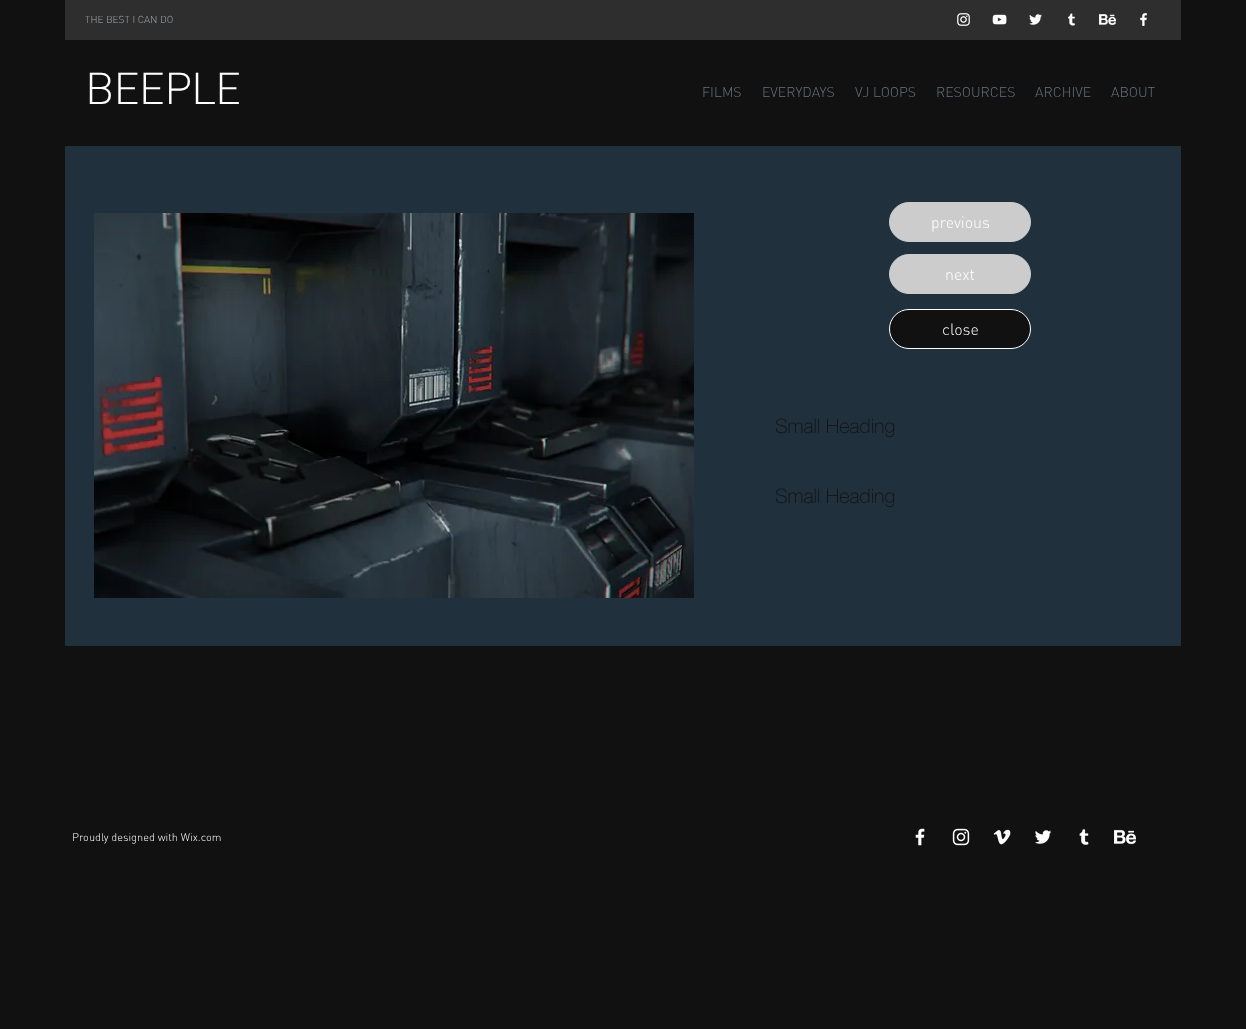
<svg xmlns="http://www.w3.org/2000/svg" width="1246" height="1029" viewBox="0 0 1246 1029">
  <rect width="100%" height="100%" fill="#111111"/>
  <rect x="65" y="0" width="1116" height="40" fill="#2f2e2e"/>
  <text x="85" y="23" font-family="DIN" font-size="10" font-weight="300" fill="#a3abb0">THE BEST I CAN DO</text>
  <image x="957" y="13" width="13" height="13" href="img1.png"/>
  <image x="992" y="14" width="15" height="11" href="img2.png"/>
  <image x="1029" y="14" width="13" height="11" href="img3.png"/>
  <image x="1068" y="13" width="7" height="13" href="img4.png"/>
  <image x="1099" y="14" width="17" height="11" href="img5.png"/>
  <image x="1140" y="13" width="7" height="13" href="img6.png"/>
  <text x="85" y="104" font-family="DIN" font-size="44" font-weight="300" letter-spacing="-1" fill="#ffffff">BEEPLE</text>
  <text x="702" y="97" font-family="DIN" font-size="14" font-weight="300" fill="#66737c">FILMS</text>
  <text x="762" y="97" font-family="DIN" font-size="14" font-weight="300" fill="#66737c">EVERYDAYS</text>
  <text x="855" y="97" font-family="DIN" font-size="14" font-weight="300" fill="#66737c">VJ LOOPS</text>
  <text x="936" y="97" font-family="DIN" font-size="14" font-weight="300" fill="#66737c">RESOURCES</text>
  <text x="1035" y="97" font-family="DIN" font-size="14" font-weight="300" fill="#66737c">ARCHIVE</text>
  <text x="1111" y="97" font-family="DIN" font-size="14" font-weight="300" fill="#66737c">ABOUT</text>
  <rect x="65" y="146" width="1116" height="500" fill="#20303c"/>
  <image x="94" y="213" width="600" height="385" href="img7.png"/>
  <rect x="889.5" y="202.5" width="141" height="39" rx="19.5" fill="#cccccc" stroke="#cccccc"/>
  <text x="931" y="228" font-family="DIN" font-size="16" font-weight="300" fill="#ffffff">previous</text>
  <rect x="889.5" y="254.5" width="141" height="39" rx="19.5" fill="#cccccc" stroke="#cccccc"/>
  <text x="945" y="280" font-family="DIN" font-size="16" font-weight="300" fill="#ffffff">next</text>
  <rect x="889.5" y="309.5" width="141" height="39" rx="19.5" fill="#111111" stroke="#ffffff"/>
  <text x="942" y="335" font-family="DIN" font-size="16" font-weight="300" fill="#ffffff">close</text>
  <text x="775" y="433" font-family="'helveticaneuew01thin'" font-size="20" font-weight="100" fill="#111111">Small Heading</text>
  <text x="775" y="503" font-family="'helveticaneuew01thin'" font-size="20" font-weight="100" fill="#111111">Small Heading</text>
  <text x="72" y="841" font-family="DIN" font-size="11" font-weight="300" fill="#ffffff">Proudly designed with Wix.com</text>
  <image x="915" y="828" width="10" height="18" href="img8.png"/>
  <image x="952" y="828" width="18" height="18" href="img9.png"/>
  <image x="993" y="829" width="18" height="16" href="img10.png"/>
  <image x="1035" y="830" width="17" height="14" href="img11.png"/>
  <image x="1079" y="829" width="10" height="16" href="img12.png"/>
  <image x="1114" y="829" width="22" height="16" href="img13.png"/>
</svg>
